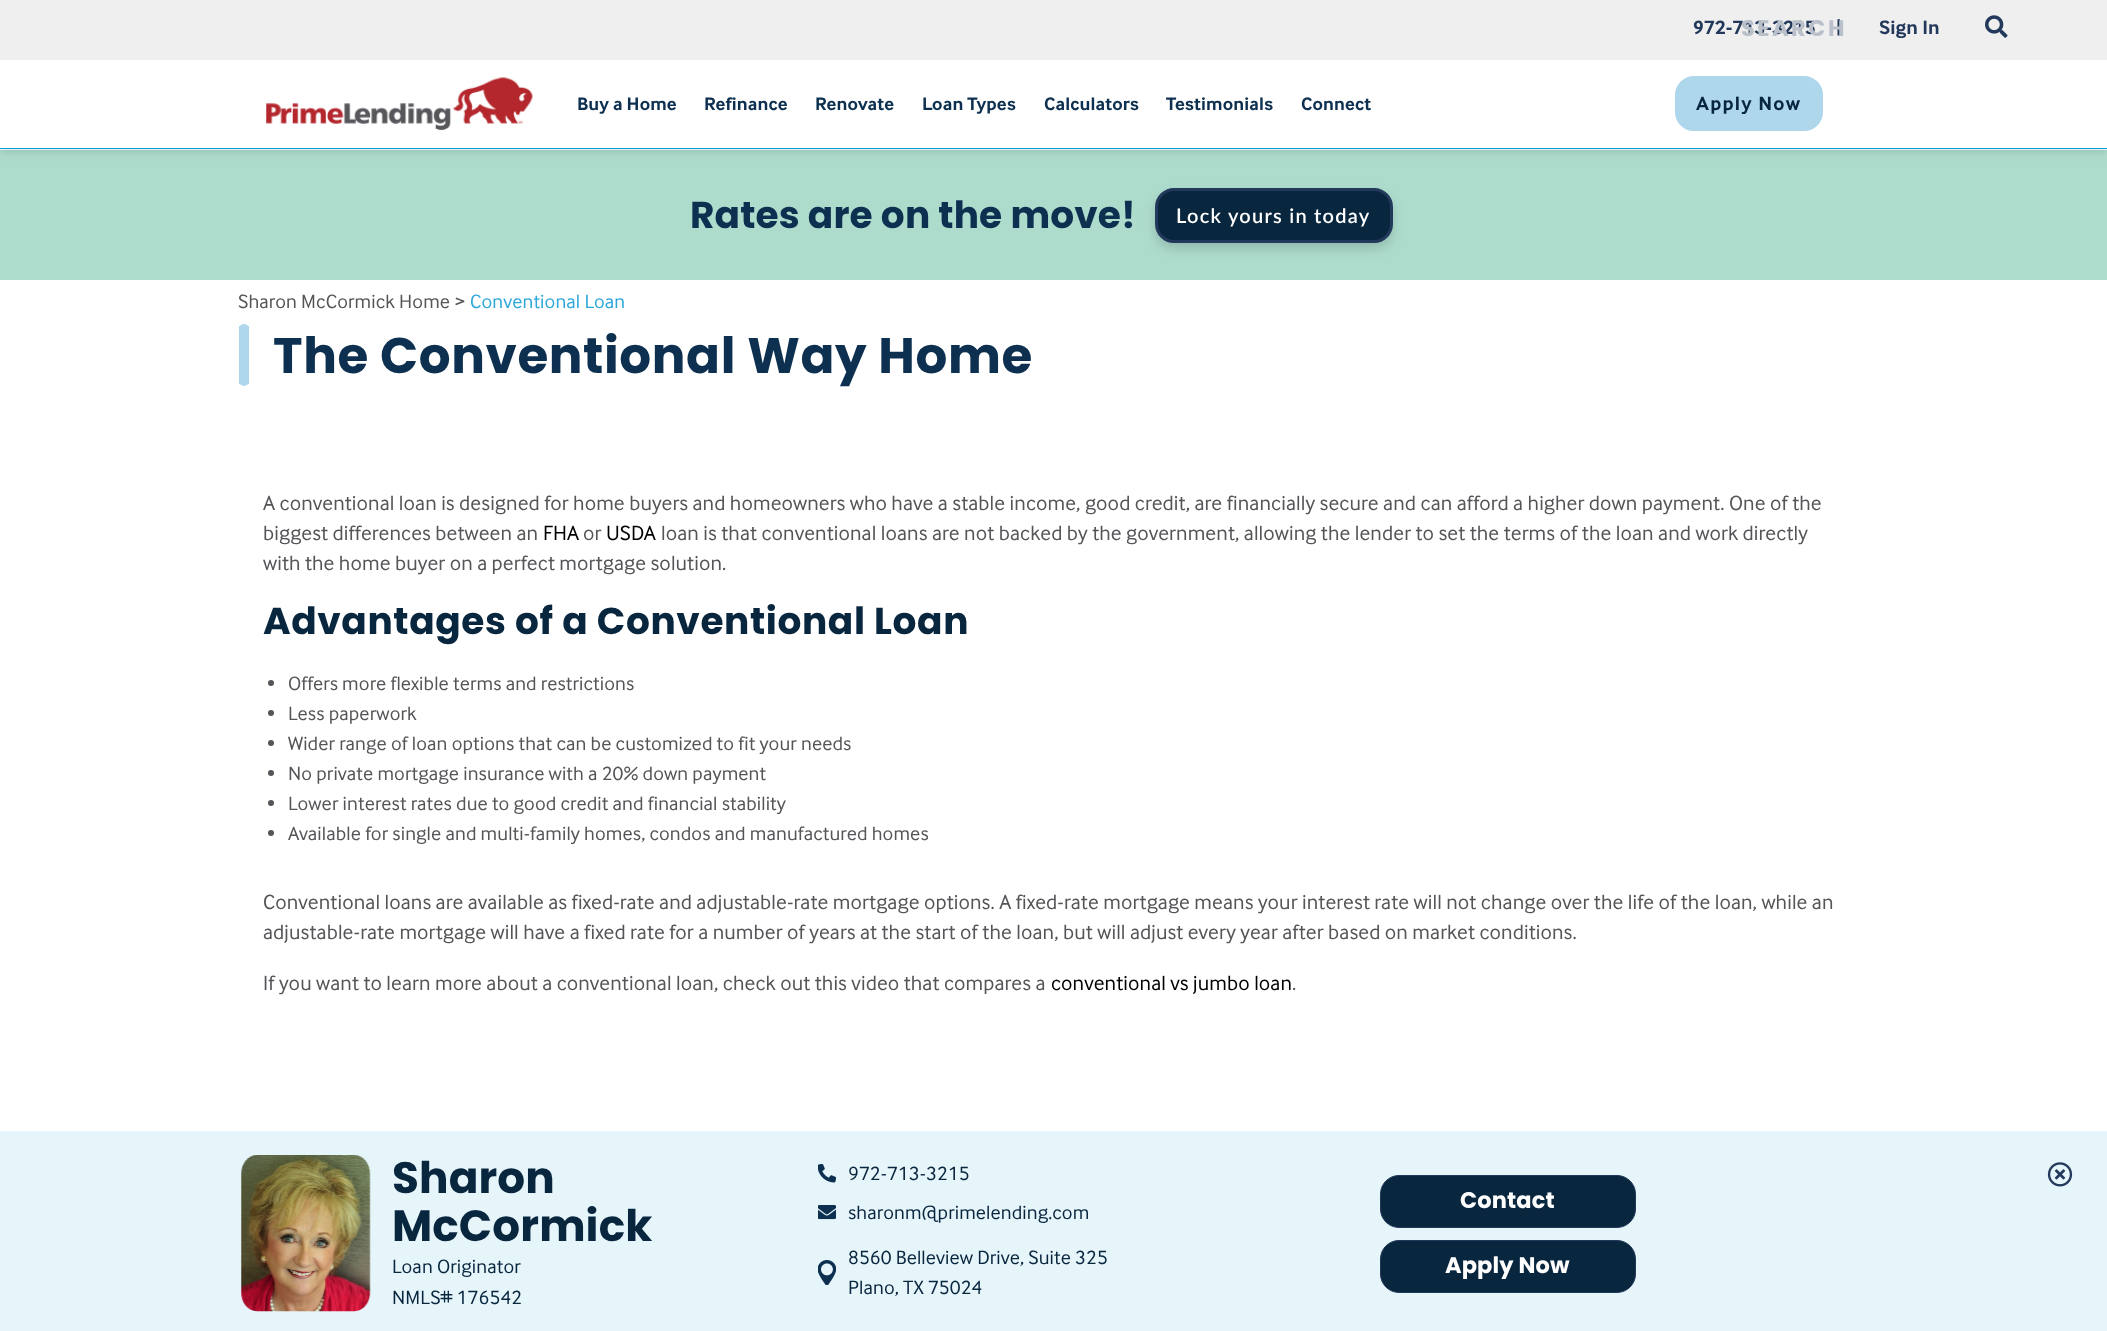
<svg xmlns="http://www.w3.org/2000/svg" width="2107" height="1331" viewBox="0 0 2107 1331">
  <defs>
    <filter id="blur1" x="-50%" y="-200%" width="200%" height="500%"><feGaussianBlur stdDeviation="4"/></filter>
    <filter id="blur2" x="-50%" y="-200%" width="200%" height="500%"><feGaussianBlur stdDeviation="6"/></filter>
  </defs>
  <rect width="100%" height="100%" fill="#ffffff"/>
  <rect x="0" y="150" width="2107" height="130" fill="#addccd"/>
  <rect x="0" y="4" width="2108" height="149" fill="#000000" fill-opacity="0.1" filter="url(#blur1)"/>
  <rect x="0" y="0" width="2107" height="60" fill="#efefef"/>
  <text x="1693" y="34" font-family="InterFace" font-size="20" font-weight="bold" letter-spacing="0.12" fill="#23395b">972-713-3215</text>
  <text x="1836" y="34" font-family="InterFace" font-size="20" font-weight="bold" letter-spacing="0.12" fill="#23395b">|</text>
  <text x="1741" y="36" font-family="Poppins" font-size="22.5" font-weight="bold" letter-spacing="2.5" fill="#bac0c9">SEARCH</text>
  <image x="1985" y="15" width="23" height="23" href="img1.png"/>
  <text x="1879" y="34" font-family="InterFace" font-size="20" font-weight="bold" letter-spacing="0.12" fill="#23395b">Sign In</text>
  <rect x="0" y="60" width="2107" height="88" fill="#ffffff"/>
  <rect x="0" y="148" width="2107" height="1" fill="#009ed8"/>
  <image x="266" y="77" width="267" height="54" href="img2.png"/>
  <text x="577" y="110" font-family="InterFace" font-size="18.75" font-weight="bold" letter-spacing="0.12" fill="#0d3050">Buy a Home</text>
  <text x="704" y="110" font-family="InterFace" font-size="18.75" font-weight="bold" letter-spacing="0.12" fill="#0d3050">Refinance</text>
  <text x="815" y="110" font-family="InterFace" font-size="18.75" font-weight="bold" letter-spacing="0.12" fill="#0d3050">Renovate</text>
  <text x="922" y="110" font-family="InterFace" font-size="18.75" font-weight="bold" letter-spacing="0.12" fill="#0d3050">Loan Types</text>
  <text x="1044" y="110" font-family="InterFace" font-size="18.75" font-weight="bold" letter-spacing="0.12" fill="#0d3050">Calculators</text>
  <text x="1166" y="110" font-family="InterFace" font-size="18.75" font-weight="bold" letter-spacing="0.12" fill="#0d3050">Testimonials</text>
  <text x="1301" y="110" font-family="InterFace" font-size="18.75" font-weight="bold" letter-spacing="0.12" fill="#0d3050">Connect</text>
  <rect x="1676.5" y="77.5" width="145" height="52" rx="17.5" fill="#aed7ec" stroke="#aed7ec" stroke-width="3"/>
  <text x="1696" y="110" font-family="InterFace" font-size="20" font-weight="bold" letter-spacing="1.25" fill="#09263f">Apply Now</text>
  <text x="690" y="228" font-family="Poppins" font-size="37.5" font-weight="bold" letter-spacing="0.12" fill="#0d3050">Rates are on the move!</text>
  <rect x="1155" y="194" width="238" height="55" rx="19" fill="#000000" fill-opacity="0.15" filter="url(#blur2)"/>
  <rect x="1156.5" y="189.5" width="235" height="52" rx="17.5" fill="#09263f" stroke="#23395b" stroke-width="3"/>
  <text x="1176" y="223" font-family="Lato" font-size="20" font-weight="600" letter-spacing="1.25" fill="#ffffff">Lock yours in today</text>
  <text x="238" y="308" font-family="InterFace" font-size="20" letter-spacing="0.12" fill="#555559">Sharon McCormick Home &gt;</text>
  <text x="470" y="308" font-family="InterFace" font-size="20" letter-spacing="0.12" fill="#2ea8db">Conventional Loan</text>
  <rect x="239" y="324" width="10" height="62" rx="5" fill="#aed7ec"/>
  <rect x="248" y="326" width="1" height="58" fill="#aed7ec"/>
  <rect x="239" y="326" width="1" height="58" fill="#aed7ec"/>
  <text x="273" y="373" font-family="Poppins" font-size="50" font-weight="bold" letter-spacing="0.6" fill="#0d3050">The Conventional Way Home</text>
  <text x="263" y="510" font-family="InterFace" font-size="21.25" letter-spacing="0.12" fill="#555559">A conventional loan is designed for home buyers and homeowners who have a stable income, good credit, are financially secure and can afford a higher down payment. One of the</text>
  <text x="263" y="540" font-family="InterFace" font-size="21.25" letter-spacing="0.12" fill="#555559">biggest differences between an</text>
  <text x="543" y="540" font-family="InterFace" font-size="21.25" letter-spacing="0.12" fill="#000000">FHA</text>
  <text x="583" y="540" font-family="InterFace" font-size="21.25" letter-spacing="0.12" fill="#555559">or</text>
  <text x="606" y="540" font-family="InterFace" font-size="21.25" letter-spacing="0.12" fill="#000000">USDA</text>
  <text x="661" y="540" font-family="InterFace" font-size="21.25" letter-spacing="0.12" fill="#555559">loan is that conventional loans are not backed by the government, allowing the lender to set the terms of the loan and work directly</text>
  <text x="263" y="570" font-family="InterFace" font-size="21.25" letter-spacing="0.12" fill="#555559">with the home buyer on a perfect mortgage solution.</text>
  <text x="263" y="634" font-family="Poppins" font-size="37.5" font-weight="bold" letter-spacing="0.6" fill="#09263f">Advantages of a Conventional Loan</text>
  <circle cx="271" cy="683" r="3" fill="#555559"/>
  <text x="288" y="690" font-family="InterFace" font-size="20" letter-spacing="0.12" fill="#555559">Offers more flexible terms and restrictions</text>
  <circle cx="271" cy="713" r="3" fill="#555559"/>
  <text x="288" y="720" font-family="InterFace" font-size="20" letter-spacing="0.12" fill="#555559">Less paperwork</text>
  <circle cx="271" cy="743" r="3" fill="#555559"/>
  <text x="288" y="750" font-family="InterFace" font-size="20" letter-spacing="0.12" fill="#555559">Wider range of loan options that can be customized to fit your needs</text>
  <circle cx="271" cy="773" r="3" fill="#555559"/>
  <text x="288" y="780" font-family="InterFace" font-size="20" letter-spacing="0.12" fill="#555559">No private mortgage insurance with a 20% down payment</text>
  <circle cx="271" cy="803" r="3" fill="#555559"/>
  <text x="288" y="810" font-family="InterFace" font-size="20" letter-spacing="0.12" fill="#555559">Lower interest rates due to good credit and financial stability</text>
  <circle cx="271" cy="833" r="3" fill="#555559"/>
  <text x="288" y="840" font-family="InterFace" font-size="20" letter-spacing="0.12" fill="#555559">Available for single and multi-family homes, condos and manufactured homes</text>
  <text x="263" y="909" font-family="InterFace" font-size="21.25" letter-spacing="0.12" fill="#555559">Conventional loans are available as fixed-rate and adjustable-rate mortgage options. A fixed-rate mortgage means your interest rate will not change over the life of the loan, while an</text>
  <text x="263" y="939" font-family="InterFace" font-size="21.25" letter-spacing="0.12" fill="#555559">adjustable-rate mortgage will have a fixed rate for a number of years at the start of the loan, but will adjust every year after based on market conditions.</text>
  <text x="263" y="990" font-family="InterFace" font-size="21.25" letter-spacing="0.12" fill="#555559">If you want to learn more about a conventional loan, check out this video that compares a</text>
  <text x="1051" y="990" font-family="InterFace" font-size="21.25" letter-spacing="0.12" fill="#000000">conventional vs jumbo loan</text>
  <text x="1292" y="990" font-family="InterFace" font-size="21.25" letter-spacing="0.12" fill="#555559">.</text>
  <rect x="0" y="1131" width="2107" height="200" fill="#e6f5fa"/>
  <image x="241" y="1155" width="130" height="157" href="img3.png"/>
  <text x="392" y="1193" font-family="Poppins" font-size="43.75" font-weight="bold" letter-spacing="0.12" fill="#09263f">Sharon</text>
  <text x="392" y="1241" font-family="Poppins" font-size="43.75" font-weight="bold" letter-spacing="0.12" fill="#09263f">McCormick</text>
  <text x="392" y="1273" font-family="InterFace" font-size="20" letter-spacing="0.12" fill="#09263f">Loan Originator</text>
  <text x="392" y="1304" font-family="InterFace" font-size="20" letter-spacing="0.12" fill="#09263f">NMLS# 176542</text>
  <image x="818" y="1164" width="18" height="19" href="img4.png"/>
  <text x="848" y="1180" font-family="InterFace" font-size="20" letter-spacing="0.12" fill="#09263f">972-713-3215</text>
  <image x="818" y="1205" width="18" height="15" href="img5.png"/>
  <text x="848" y="1219" font-family="InterFace" font-size="20" letter-spacing="0.12" fill="#09263f">sharonm@primelending.com</text>
  <image x="818" y="1260" width="18" height="25" href="img6.png"/>
  <text x="848" y="1264" font-family="InterFace" font-size="20" letter-spacing="0.12" fill="#09263f">8560 Belleview Drive, Suite 325</text>
  <text x="848" y="1294" font-family="InterFace" font-size="20" letter-spacing="0.12" fill="#09263f">Plano, TX 75024</text>
  <rect x="1380.5" y="1175.5" width="255" height="52" rx="18.5" fill="#09263f" stroke="#23395b"/>
  <text x="1460" y="1208" font-family="Poppins" font-size="22.5" font-weight="bold" letter-spacing="0.12" fill="#ffffff">Contact</text>
  <rect x="1380.5" y="1240.5" width="255" height="52" rx="18.5" fill="#09263f" stroke="#23395b"/>
  <text x="1445" y="1273" font-family="Poppins" font-size="22.5" font-weight="bold" letter-spacing="0.12" fill="#ffffff">Apply Now</text>
  <image x="2047" y="1162" width="26" height="25" href="img7.png"/>
</svg>
